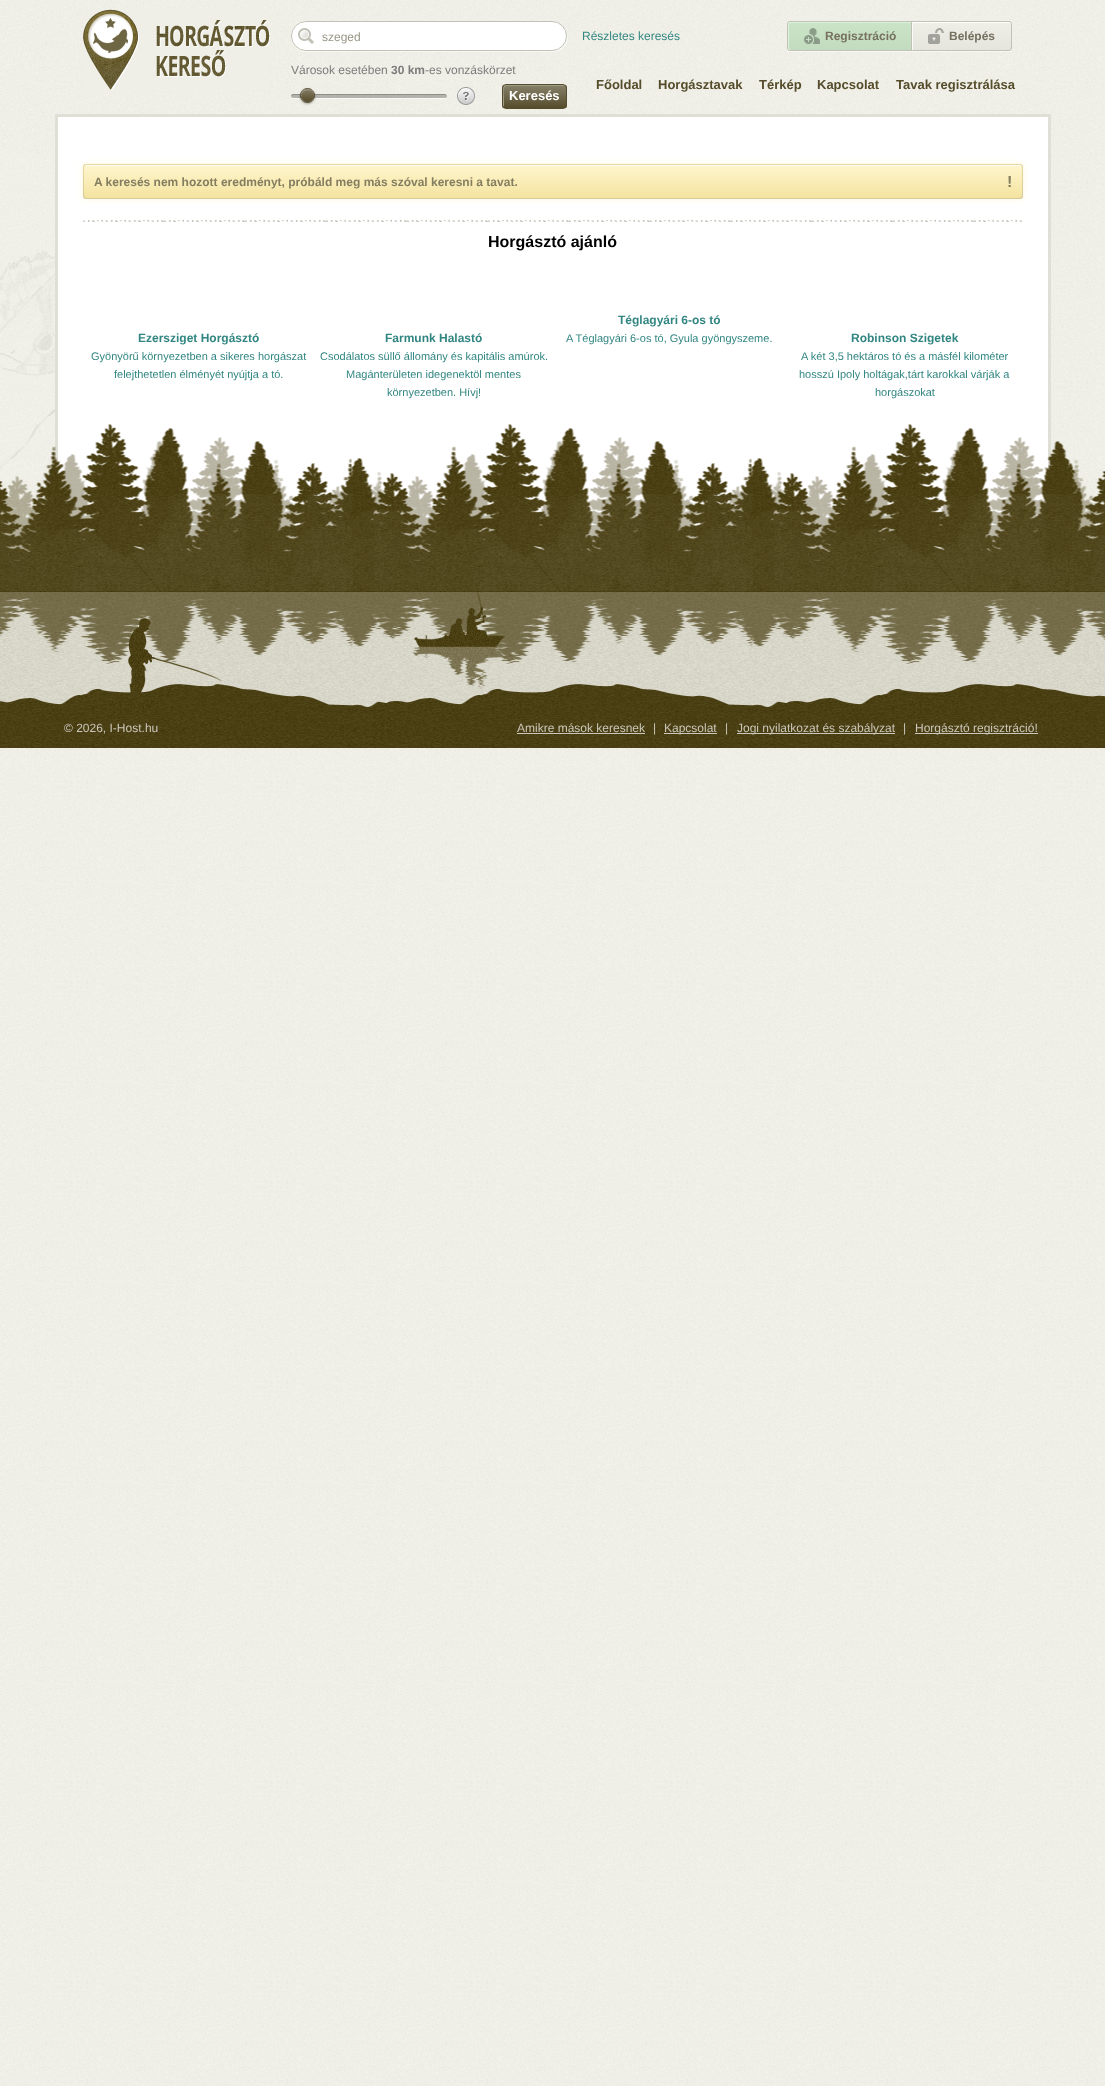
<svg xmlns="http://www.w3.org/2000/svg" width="1105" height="2086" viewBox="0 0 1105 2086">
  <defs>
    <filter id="blur1" x="-50%" y="-200%" width="200%" height="500%"><feGaussianBlur stdDeviation="1"/></filter>
    <linearGradient id="g1" gradientUnits="userSpaceOnUse" x1="308" y1="102" x2="308" y2="89"><stop offset="0" stop-color="#554b2b"/><stop offset="1" stop-color="#857d65"/></linearGradient>
    <clipPath id="clip1"><rect x="502" y="84" width="65" height="25" rx="4"/></clipPath>
    <linearGradient id="g2" gradientUnits="userSpaceOnUse" x1="535" y1="85" x2="535" y2="108"><stop offset="0" stop-color="#878169"/><stop offset="1" stop-color="#554c2b"/></linearGradient>
    <linearGradient id="g3" gradientUnits="userSpaceOnUse" x1="900" y1="50" x2="900" y2="22"><stop offset="0" stop-color="#e5e5de"/><stop offset="1" stop-color="#efefe7"/></linearGradient>
    <filter id="blur2" x="-50%" y="-200%" width="200%" height="500%"><feGaussianBlur stdDeviation="3"/></filter>
    <linearGradient id="g4" gradientUnits="userSpaceOnUse" x1="553" y1="164" x2="553" y2="199"><stop offset="0" stop-color="#e6d89f"/><stop offset="1" stop-color="#d4c999"/></linearGradient>
    <linearGradient id="g5" gradientUnits="userSpaceOnUse" x1="553" y1="165" x2="553" y2="198"><stop offset="0" stop-color="#fff5ce"/><stop offset="1" stop-color="#f4e49f"/></linearGradient>
  </defs>
  <rect width="100%" height="100%" fill="#efefe7"/>
  <image x="0" y="0" width="1104" height="2086" href="img1.png"/>
  <image x="0" y="153" width="55" height="345" href="img2.png"/>
  <image x="83" y="9" width="187" height="82" href="img3.png"/>
  <path d="M296 47C298 50 302 52 305 52H553C567 52 573 35 563 26C566 29 567 32 567 36C567 44 560 51 552 51H306C302 51 299 50 296 47Z" fill="#ffffff" fill-opacity="0.5"/>
  <rect x="291" y="21" width="276" height="30" rx="15" fill="#ffffff"/>
  <image x="298" y="28" width="16" height="16" href="img4.png"/>
  <rect x="291.5" y="21.5" width="275" height="29" rx="14.5" fill="none" stroke="#c1c1b6"/>
  <text x="322" y="41" font-family="Liberation Sans" font-size="12" fill="#999585">szeged</text>
  <text x="291" y="74" font-family="Liberation Sans" font-size="12" fill="#7c7c7c">Városok esetében</text>
  <text x="391" y="74" font-family="Liberation Sans" font-size="12" font-weight="bold" fill="#7c7c7c">30 km</text>
  <text x="425" y="74" font-family="Liberation Sans" font-size="12" fill="#7c7c7c">-es vonzáskörzet</text>
  <path d="M291 96V98L293 99H445C446 99 447 98 447 96C447 97 446 98 445 98H292Z" fill="#ffffff" fill-opacity="0.6"/>
  <rect x="291" y="94" width="156" height="4" rx="2" fill="#000000" fill-opacity="0.25"/>
  <path d="M293 95H445C446 95 447 96 447 97L446 95L445 94H293C292 94 291 95 291 96Z" fill="#000000" fill-opacity="0.2"/>
  <rect x="300" y="89" width="15" height="15" rx="7.5" fill="#000000" fill-opacity="0.3" filter="url(#blur1)"/>
  <circle cx="307.5" cy="95.5" r="6.5" fill="url(#g1)"/>
  <path d="M308 90C312 90 314 93 314 96C314.5 85.5 298 88 301.5 97.5C301 94 303 90 308 90Z" fill="#ffffff" fill-opacity="0.3"/>
  <circle cx="307.5" cy="95.5" r="7" fill="none" stroke="#554b2b"/>
  <image x="457" y="87" width="18" height="18" href="img5.png"/>
  <g clip-path="url(#clip1)">
    <rect x="502" y="85" width="65" height="23" fill="url(#g2)"/>
  </g>
  <path d="M507 86H565C565 85 564 85 563 85H506C504 85 503 86 503 88V105C503 106 503 107 504 107V98C504 94 502 86 507 86Z" fill="#a09b89"/>
  <rect x="502.5" y="84.5" width="64" height="24" rx="3.5" fill="none" stroke="#554c2b"/>
  <text x="509" y="100" font-family="Liberation Sans" font-size="13" font-weight="bold" fill="#ffffff">Keresés</text>
  <text x="582" y="40" font-family="Liberation Sans" font-size="12" fill="#328682">Részletes keresés</text>
  <path d="M787 48V49C787 51 788 52 790 52H1009C1011 52 1012 51 1012 49V48C1012 50 1011 51 1009 51H790C788 51 787 50 787 48Z" fill="#ffffff" fill-opacity="0.5"/>
  <rect x="788" y="22" width="223" height="28" rx="2" fill="url(#g3)"/>
  <path d="M790 23H1009C1010 23 1011 24 1011 25C1011 24 1011 22 1009 22H790L789 23L788 25C788 24 789 23 790 23Z" fill="#ffffff"/>
  <rect x="787.5" y="21.5" width="224" height="29" rx="2.5" fill="none" stroke="#c1c1b5"/>
  <path d="M791 22H912V50H791C789.5 50 788 48.5 788 47V25C788 23.5 789.5 22 791 22Z" fill="#00a614" fill-opacity="0.15"/>
  <rect x="911" y="22" width="1" height="28" fill="#c1c1b5"/>
  <path d="M791 22C789 22 788 23 788 25V47C788 49 789 50 791 50C790 50 789 49 789 47V25C789 23 790 22 791 22Z" fill="#d9f2dc"/>
  <image x="804" y="28" width="16" height="16" href="img6.png"/>
  <text x="825" y="40" font-family="Liberation Sans" font-size="12" font-weight="bold" fill="#757060">Regisztráció</text>
  <rect x="912" y="22" width="1" height="28" fill="#fbfbf9"/>
  <image x="928" y="28" width="16" height="16" href="img7.png"/>
  <text x="949" y="40" font-family="Liberation Sans" font-size="12" font-weight="bold" fill="#757060">Belépés</text>
  <text x="596" y="89" font-family="Liberation Sans" font-size="13" font-weight="bold" fill="#554c2b">Főoldal</text>
  <text x="658" y="89" font-family="Liberation Sans" font-size="13" font-weight="bold" fill="#554c2b">Horgásztavak</text>
  <text x="759" y="89" font-family="Liberation Sans" font-size="13" font-weight="bold" fill="#554c2b">Térkép</text>
  <text x="817" y="89" font-family="Liberation Sans" font-size="13" font-weight="bold" fill="#554c2b">Kapcsolat</text>
  <text x="896" y="89" font-family="Liberation Sans" font-size="13" font-weight="bold" fill="#554c2b">Tavak regisztrálása</text>
  <rect x="58" y="117" width="990" height="445" fill="#ffffff"/>
  <rect x="56.5" y="115.5" width="993" height="477" fill="none" stroke="#dfdfd5" stroke-width="3"/>
  <rect x="83" y="164" width="940" height="35" rx="3" fill="#fef4cb" fill-opacity="0.7" filter="url(#blur2)"/>
  <rect x="83" y="164" width="940" height="35" rx="3" fill="url(#g4)"/>
  <rect x="84" y="165" width="938" height="33" rx="3" fill="url(#g5)"/>
  <path d="M87 166H1019C1021 166 1022 167 1022 169C1022 167 1021 165 1019 165H87C85 165 84 167 84 169C84 167 85 166 87 166Z" fill="#fffdf3"/>
  <text x="94" y="186" font-family="Liberation Sans" font-size="12" font-weight="bold" fill="#847e61">A keresés nem hozott eredményt, próbáld meg más szóval keresni a tavat.</text>
  <text x="1007" y="187" font-family="Liberation Sans" font-size="16" font-weight="bold" fill="#847e61">!</text>
  <image x="83" y="219" width="939" height="3" href="img8.png"/>
  <text x="488" y="247" font-family="Liberation Sans" font-size="16" font-weight="bold" fill="#000000">Horgásztó ajánló</text>
  <text x="618" y="324" font-family="Liberation Sans" font-size="12" font-weight="bold" fill="#328682">Téglagyári 6-os tó</text>
  <text x="566" y="342" font-family="Liberation Sans" font-size="11" fill="#328682">A Téglagyári 6-os tó, Gyula gyöngyszeme.</text>
  <text x="138" y="342" font-family="Liberation Sans" font-size="12" font-weight="bold" fill="#328682">Ezersziget Horgásztó</text>
  <text x="91" y="360" font-family="Liberation Sans" font-size="11" fill="#328682">Gyönyörű környezetben a sikeres horgászat</text>
  <text x="114" y="378" font-family="Liberation Sans" font-size="11" fill="#328682">felejthetetlen élményét nyújtja a tó.</text>
  <text x="385" y="342" font-family="Liberation Sans" font-size="12" font-weight="bold" fill="#328682">Farmunk Halastó</text>
  <text x="320" y="360" font-family="Liberation Sans" font-size="11" fill="#328682">Csodálatos süllő állomány és kapitális amúrok.</text>
  <text x="346" y="378" font-family="Liberation Sans" font-size="11" fill="#328682">Magánterületen idegenektöl mentes</text>
  <text x="387" y="396" font-family="Liberation Sans" font-size="11" fill="#328682">környezetben. Hívj!</text>
  <text x="851" y="342" font-family="Liberation Sans" font-size="12" font-weight="bold" fill="#328682">Robinson Szigetek</text>
  <text x="801" y="360" font-family="Liberation Sans" font-size="11" fill="#328682">A két 3,5 hektáros tó és a másfél kilométer</text>
  <text x="799" y="378" font-family="Liberation Sans" font-size="11" fill="#328682">hosszú Ipoly holtágak,tárt karokkal várják a</text>
  <text x="875" y="396" font-family="Liberation Sans" font-size="11" fill="#328682">horgászokat</text>
  <image x="0" y="424" width="1105" height="324" href="img9.png"/>
  <image x="128" y="618" width="24" height="90" href="img10.png"/>
  <image x="151" y="657" width="71" height="25" href="img11.png"/>
  <image x="413" y="583" width="92" height="106" href="img12.png"/>
  <text x="64" y="732" font-family="Liberation Sans" font-size="12" fill="#cbc7ba">© 2026, I-Host.hu</text>
  <text x="517" y="732" font-family="Liberation Sans" font-size="12" fill="#cbc7ba">Amikre mások keresnek</text>
  <rect x="517" y="733" width="128" height="1" fill="#cbc7ba"/>
  <text x="653" y="732" font-family="Liberation Sans" font-size="12" fill="#cbc7ba">|</text>
  <rect x="664" y="733" width="53" height="1" fill="#cbc7ba"/>
  <text x="664" y="732" font-family="Liberation Sans" font-size="12" fill="#cbc7ba">Kapcsolat</text>
  <text x="725" y="732" font-family="Liberation Sans" font-size="12" fill="#cbc7ba">|</text>
  <rect x="737" y="733" width="158" height="1" fill="#cbc7ba"/>
  <text x="737" y="732" font-family="Liberation Sans" font-size="12" fill="#cbc7ba">Jogi nyilatkozat és szabályzat</text>
  <text x="903" y="732" font-family="Liberation Sans" font-size="12" fill="#cbc7ba">|</text>
  <rect x="915" y="733" width="123" height="1" fill="#cbc7ba"/>
  <text x="915" y="732" font-family="Liberation Sans" font-size="12" fill="#cbc7ba">Horgásztó regisztráció!</text>
</svg>
